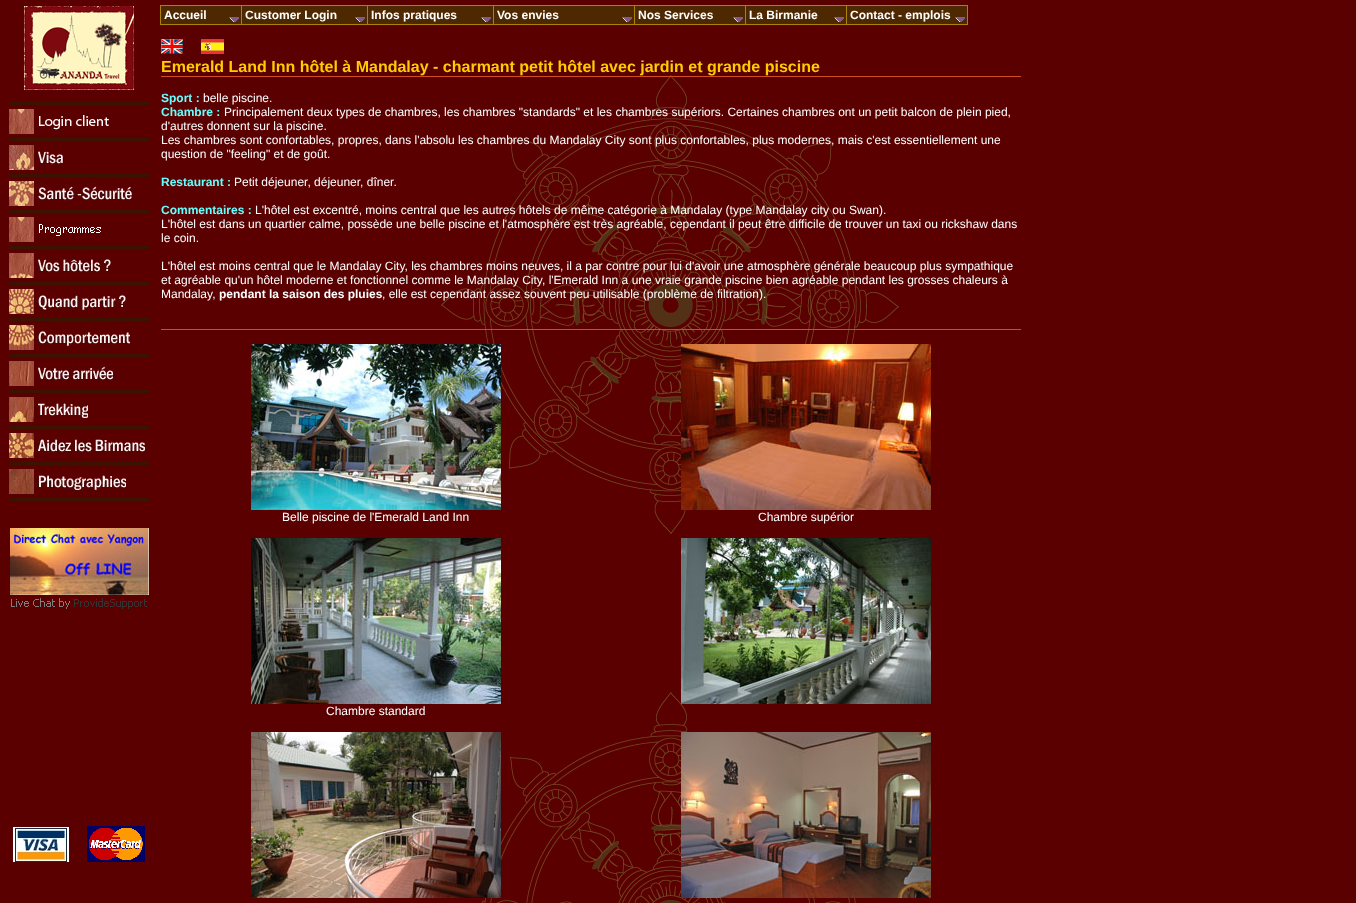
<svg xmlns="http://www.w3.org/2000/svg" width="1356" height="903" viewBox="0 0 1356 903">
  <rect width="100%" height="100%" fill="#ffffff"/>
  <image x="0" y="0" width="1356" height="903" href="img1.png"/>
  <rect x="160" y="5" width="808" height="20" fill="#ab8107"/>
  <rect x="161" y="6" width="80" height="18" fill="#4e2800"/>
  <text x="164" y="19" font-family="Liberation Sans" font-size="12" font-weight="bold" fill="#ffffff">Accueil</text>
  <image x="229" y="17" width="10" height="5" href="img2.png"/>
  <rect x="242" y="6" width="125" height="18" fill="#4e2800"/>
  <text x="245" y="19" font-family="Liberation Sans" font-size="12" font-weight="bold" fill="#ffffff">Customer Login</text>
  <image x="355" y="17" width="10" height="5" href="img2.png"/>
  <rect x="368" y="6" width="125" height="18" fill="#4e2800"/>
  <text x="371" y="19" font-family="Liberation Sans" font-size="12" font-weight="bold" fill="#ffffff">Infos pratiques</text>
  <image x="481" y="17" width="10" height="5" href="img2.png"/>
  <rect x="494" y="6" width="140" height="18" fill="#4e2800"/>
  <text x="497" y="19" font-family="Liberation Sans" font-size="12" font-weight="bold" fill="#ffffff">Vos envies</text>
  <image x="622" y="17" width="10" height="5" href="img2.png"/>
  <rect x="635" y="6" width="110" height="18" fill="#4e2800"/>
  <text x="638" y="19" font-family="Liberation Sans" font-size="12" font-weight="bold" fill="#ffffff">Nos Services</text>
  <image x="733" y="17" width="10" height="5" href="img2.png"/>
  <rect x="746" y="6" width="100" height="18" fill="#4e2800"/>
  <text x="749" y="19" font-family="Liberation Sans" font-size="12" font-weight="bold" fill="#ffffff">La Birmanie</text>
  <image x="834" y="17" width="10" height="5" href="img2.png"/>
  <rect x="847" y="6" width="120" height="18" fill="#4e2800"/>
  <text x="850" y="19" font-family="Liberation Sans" font-size="12" font-weight="bold" fill="#ffffff">Contact - emplois</text>
  <image x="955" y="17" width="10" height="5" href="img2.png"/>
  <image x="24" y="6" width="110" height="84" href="img3.png"/>
  <rect x="9" y="102" width="140" height="3" fill="#3c1300"/>
  <image x="9" y="109" width="25" height="25" href="img4.png"/>
  <image x="39" y="115" width="70" height="15" href="img5.png"/>
  <rect x="9" y="138" width="140" height="3" fill="#3c1300"/>
  <image x="9" y="145" width="25" height="25" href="img6.png"/>
  <image x="38" y="147" width="100" height="21" href="img7.png"/>
  <rect x="9" y="174" width="140" height="3" fill="#3c1300"/>
  <image x="9" y="181" width="25" height="25" href="img8.png"/>
  <image x="38" y="183" width="94" height="20" href="img9.png"/>
  <rect x="9" y="210" width="140" height="3" fill="#3c1300"/>
  <image x="9" y="217" width="25" height="25" href="img4.png"/>
  <image x="39" y="219" width="71" height="17" href="img10.png"/>
  <rect x="9" y="246" width="140" height="3" fill="#3c1300"/>
  <image x="9" y="253" width="25" height="25" href="img11.png"/>
  <image x="38" y="255" width="73" height="21" href="img12.png"/>
  <rect x="9" y="282" width="140" height="3" fill="#3c1300"/>
  <image x="9" y="289" width="25" height="25" href="img13.png"/>
  <image x="38" y="291" width="88" height="21" href="img14.png"/>
  <rect x="9" y="318" width="140" height="3" fill="#3c1300"/>
  <image x="9" y="325" width="25" height="25" href="img15.png"/>
  <image x="38" y="327" width="92" height="20" href="img16.png"/>
  <rect x="9" y="354" width="140" height="3" fill="#3c1300"/>
  <image x="9" y="361" width="25" height="25" href="img17.png"/>
  <image x="38" y="363" width="75" height="18" href="img18.png"/>
  <rect x="9" y="390" width="140" height="3" fill="#3c1300"/>
  <image x="9" y="397" width="25" height="25" href="img19.png"/>
  <image x="38" y="399" width="50" height="21" href="img20.png"/>
  <rect x="9" y="426" width="140" height="3" fill="#3c1300"/>
  <image x="9" y="433" width="25" height="25" href="img21.png"/>
  <image x="38" y="435" width="107" height="18" href="img22.png"/>
  <rect x="9" y="462" width="140" height="3" fill="#3c1300"/>
  <image x="9" y="469" width="25" height="25" href="img23.png"/>
  <image x="38" y="471" width="88" height="21" href="img24.png"/>
  <rect x="9" y="498" width="140" height="3" fill="#3c1300"/>
  <image x="10" y="528" width="139" height="67" href="img25.png"/>
  <image x="11" y="598" width="136" height="11" href="img26.png"/>
  <image x="13" y="827" width="56" height="35" href="img27.png"/>
  <image x="87" y="826" width="58" height="36" href="img28.png"/>
  <image x="161" y="39" width="22" height="15" href="img29.png"/>
  <image x="201" y="39" width="23" height="15" href="img30.png"/>
  <text x="161" y="72" font-family="Liberation Sans" font-size="16" font-weight="bold" fill="#ffcc00">Emerald Land Inn hôtel à Mandalay - charmant petit hôtel avec jardin et grande piscine</text>
  <rect x="161" y="76" width="860" height="1" fill="#cd5021"/>
  <text x="161" y="102" font-family="Liberation Sans" font-size="12" font-weight="bold" fill="#66ffff">Sport :</text>
  <text x="203" y="102" font-family="Liberation Sans" font-size="12" fill="#ffffff">belle piscine.</text>
  <text x="161" y="116" font-family="Liberation Sans" font-size="12" font-weight="bold" fill="#66ffff">Chambre :</text>
  <text x="224" y="116" font-family="Liberation Sans" font-size="12" fill="#ffffff">Principalement deux types de chambres, les chambres "standards" et les chambres supériors. Certaines chambres ont un petit balcon de plein pied,</text>
  <text x="161" y="130" font-family="Liberation Sans" font-size="12" fill="#ffffff">d'autres donnent sur la piscine.</text>
  <text x="161" y="144" font-family="Liberation Sans" font-size="12" fill="#ffffff">Les chambres sont confortables, propres, dans l'absolu les chambres du Mandalay City sont plus confortables, plus modernes, mais c'est essentiellement une</text>
  <text x="161" y="158" font-family="Liberation Sans" font-size="12" fill="#ffffff">question de "feeling" et de goût.</text>
  <text x="161" y="186" font-family="Liberation Sans" font-size="12" font-weight="bold" fill="#66ffff">Restaurant :</text>
  <text x="234" y="186" font-family="Liberation Sans" font-size="12" fill="#ffffff">Petit déjeuner, déjeuner, dîner.</text>
  <text x="161" y="214" font-family="Liberation Sans" font-size="12" font-weight="bold" fill="#66ffff">Commentaires :</text>
  <text x="255" y="214" font-family="Liberation Sans" font-size="12" fill="#ffffff">L'hôtel est excentré, moins central que les autres hôtels de même catégorie à Mandalay (type Mandalay city ou Swan).</text>
  <text x="161" y="228" font-family="Liberation Sans" font-size="12" fill="#ffffff">L'hôtel est dans un quartier calme, possède une belle piscine et l'atmosphère est très agréable, cependant il peut être difficile de trouver un taxi ou rickshaw dans</text>
  <text x="161" y="242" font-family="Liberation Sans" font-size="12" fill="#ffffff">le coin.</text>
  <text x="161" y="270" font-family="Liberation Sans" font-size="12" fill="#ffffff">L'hôtel est moins central que le Mandalay City, les chambres moins neuves, il a par contre pour lui d'avoir une atmosphère générale beaucoup plus sympathique</text>
  <text x="161" y="284" font-family="Liberation Sans" font-size="12" fill="#ffffff">et agréable qu'un hôtel moderne et fonctionnel comme le Mandalay City, l'Emerald Inn a une vraie grande piscine bien agréable pendant les grosses chaleurs à</text>
  <text x="161" y="298" font-family="Liberation Sans" font-size="12" fill="#ffffff">Mandalay,</text>
  <text x="219" y="298" font-family="Liberation Sans" font-size="12" font-weight="bold" fill="#ffffff">pendant la saison des pluies</text>
  <text x="382" y="298" font-family="Liberation Sans" font-size="12" fill="#ffffff">, elle est cependant assez souvent peu utilisable (problème de filtration).</text>
  <rect x="161" y="329" width="860" height="1" fill="#cd5021"/>
  <image x="251" y="344" width="250" height="166" href="img31.png"/>
  <text x="282" y="521" font-family="Liberation Sans" font-size="12" fill="#ffffff">Belle piscine de l'Emerald Land Inn</text>
  <image x="681" y="344" width="250" height="166" href="img32.png"/>
  <text x="758" y="521" font-family="Liberation Sans" font-size="12" fill="#ffffff">Chambre supérior</text>
  <image x="681" y="538" width="250" height="166" href="img33.png"/>
  <image x="251" y="538" width="250" height="166" href="img34.png"/>
  <text x="326" y="715" font-family="Liberation Sans" font-size="12" fill="#ffffff">Chambre standard</text>
  <image x="251" y="732" width="250" height="166" href="img35.png"/>
  <image x="681" y="732" width="250" height="166" href="img36.png"/>
</svg>
